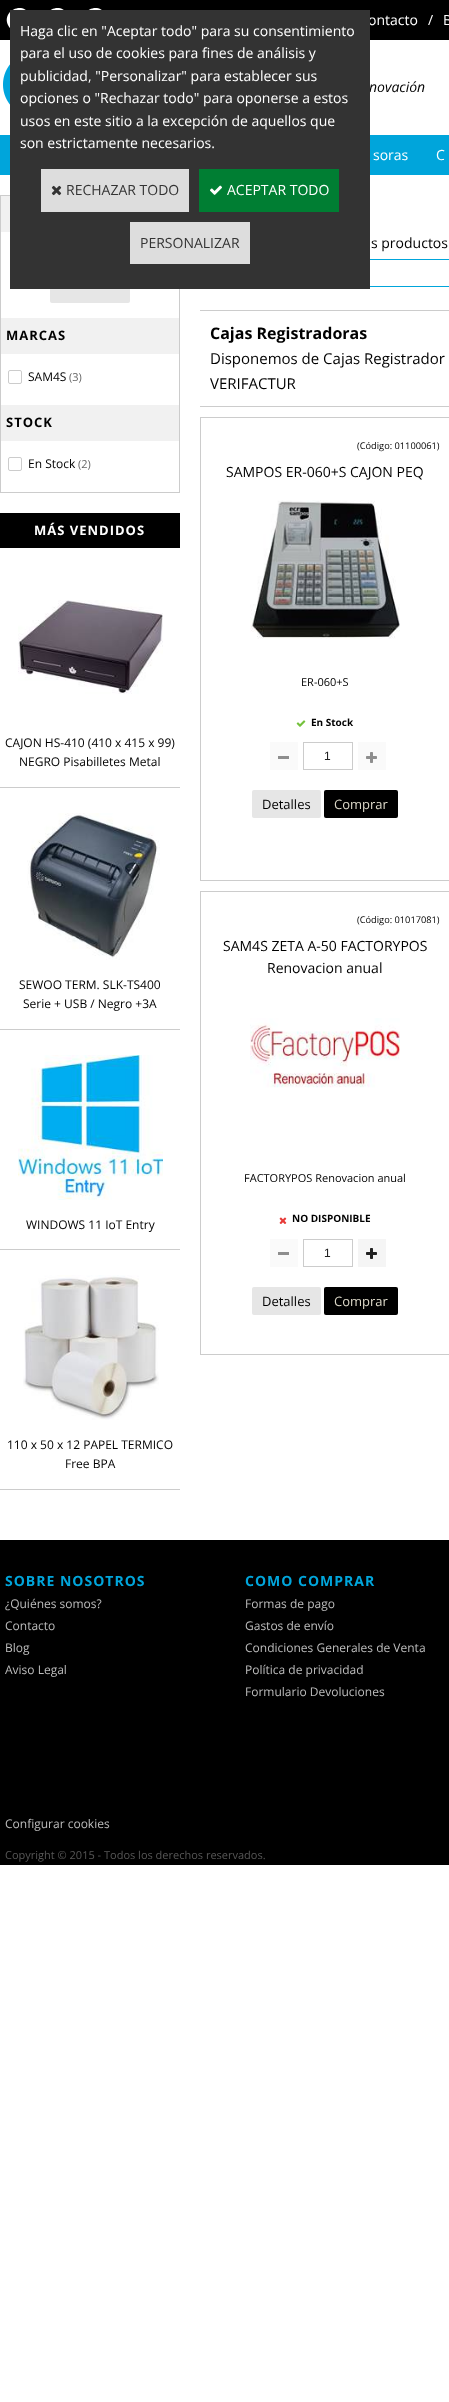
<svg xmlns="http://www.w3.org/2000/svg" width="449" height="2402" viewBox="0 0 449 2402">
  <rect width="100%" height="100%" fill="#ffffff"/>
  <rect x="0" y="135" width="449" height="40" fill="#00a5db"/>
  <rect x="0" y="0" width="449" height="40" fill="#000000"/>
  <path d="M29.5 14C37.5 27.5 16.5 39.5 8.5 26C.5 12.5 21.5 .5 29.5 14Z" fill="#ffffff"/>
  <path d="M67.5 14C75.5 27.5 54.5 39.5 46.5 26C38.5 12.5 59.5 .5 67.5 14Z" fill="#ffffff"/>
  <path d="M105.5 14C113.5 27.5 92.5 39.5 84.5 26C76.5 12.5 97.5 .5 105.5 14Z" fill="#ffffff"/>
  <text x="368" y="25" font-family="Open Sans" font-size="14" fill="#ffffff">ontacto</text>
  <text x="369" y="92" font-family="Open Sans" font-size="14" font-style="italic" fill="#000000">novación</text>
  <rect x="0.5" y="195.5" width="179" height="297" fill="none" stroke="#cccccc"/>
  <rect x="50" y="275" width="80" height="28" rx="2" fill="#e6e6e6"/>
  <rect x="200.5" y="259.5" width="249" height="27" fill="none" stroke="#00a5db"/>
  <rect x="10" y="10" width="360" height="279" fill="#333333"/>
  <text x="20" y="36" font-family="Open Sans" font-size="14" fill="#ffffff">Haga clic en "Aceptar todo" para su consentimiento</text>
  <text x="20" y="58" font-family="Open Sans" font-size="14" fill="#ffffff">para el uso de cookies para fines de análisis y</text>
  <text x="20" y="81" font-family="Open Sans" font-size="14" fill="#ffffff">publicidad, "Personalizar" para establecer sus</text>
  <text x="20" y="103" font-family="Open Sans" font-size="14" fill="#ffffff">opciones o "Rechazar todo" para oponerse a estos</text>
  <text x="20" y="126" font-family="Open Sans" font-size="14" fill="#ffffff">usos en este sitio a la excepción de aquellos que</text>
  <text x="20" y="148" font-family="Open Sans" font-size="14" fill="#ffffff">son estrictamente necesarios.</text>
  <rect x="41" y="169" width="148" height="43" fill="#dddddd"/>
  <image x="51" y="185" width="11" height="11" href="img1.png"/>
  <text x="66" y="195" font-family="Open Sans" font-size="14" fill="#333333">RECHAZAR TODO</text>
  <rect x="199" y="169" width="140" height="43" fill="#007e33"/>
  <image x="210" y="185" width="12" height="10" href="img2.png"/>
  <text x="227" y="195" font-family="Open Sans" font-size="14" fill="#ffffff">ACEPTAR TODO</text>
  <rect x="130" y="222" width="120" height="42" fill="#dddddd"/>
  <text x="140" y="248" font-family="Open Sans" font-size="14" fill="#333333">PERSONALIZAR</text>
  <text x="428" y="25" font-family="Open Sans" font-size="14" fill="#ffffff">/</text>
  <text x="443" y="25" font-family="Open Sans" font-size="14" fill="#ffffff">B</text>
  <image x="3" y="64" width="7" height="41" href="img3.png"/>
  <text x="373" y="160" font-family="Open Sans" font-size="14" fill="#ffffff">soras</text>
  <text x="436" y="160" font-family="Open Sans" font-size="14" fill="#ffffff">C</text>
  <rect x="1" y="196" width="9" height="36" fill="#f1f1f1"/>
  <rect x="1" y="318" width="178" height="36" fill="#f1f1f1"/>
  <text x="6" y="340" font-family="Open Sans" font-size="13" font-weight="bold" letter-spacing="1" fill="#000000">MARCAS</text>
  <rect x="8.5" y="370.5" width="13" height="13" rx="1.5" fill="none" stroke="#cccccc"/>
  <text x="28" y="381" font-family="Open Sans" font-size="12" fill="#000000">SAM4S</text>
  <text x="69" y="381" font-family="Open Sans" font-size="11" fill="#666666">(3)</text>
  <rect x="1" y="405" width="178" height="36" fill="#f1f1f1"/>
  <text x="6" y="427" font-family="Open Sans" font-size="13" font-weight="bold" letter-spacing="1" fill="#000000">STOCK</text>
  <rect x="8.5" y="457.5" width="13" height="13" rx="1.5" fill="none" stroke="#cccccc"/>
  <text x="28" y="468" font-family="Open Sans" font-size="12" fill="#000000">En Stock</text>
  <text x="78" y="468" font-family="Open Sans" font-size="11" fill="#666666">(2)</text>
  <rect x="0" y="513" width="180" height="35" fill="#000000"/>
  <text x="34" y="535" font-family="Open Sans" font-size="13" font-weight="bold" letter-spacing="1" fill="#ffffff">MÁS VENDIDOS</text>
  <rect x="0" y="787" width="180" height="1" fill="#cccccc"/>
  <image x="18" y="600" width="145" height="94" href="img4.png"/>
  <text x="5" y="747" font-family="Open Sans" font-size="12" fill="#000000">CAJON HS-410 (410 x 415 x 99)</text>
  <text x="19" y="766" font-family="Open Sans" font-size="12" fill="#000000">NEGRO Pisabilletes Metal</text>
  <rect x="0" y="1029" width="180" height="1" fill="#cccccc"/>
  <image x="27" y="813" width="133" height="147" href="img5.png"/>
  <text x="19" y="989" font-family="Open Sans" font-size="12" fill="#000000">SEWOO TERM. SLK-TS400</text>
  <text x="23" y="1008" font-family="Open Sans" font-size="12" fill="#000000">Serie + USB / Negro +3A</text>
  <rect x="0" y="1249" width="180" height="1" fill="#cccccc"/>
  <image x="18" y="1055" width="145" height="145" href="img6.png"/>
  <text x="26" y="1229" font-family="Open Sans" font-size="12" fill="#000000">WINDOWS 11 IoT Entry</text>
  <rect x="0" y="1489" width="180" height="1" fill="#cccccc"/>
  <image x="23" y="1275" width="136" height="145" href="img7.png"/>
  <text x="7" y="1449" font-family="Open Sans" font-size="12" fill="#000000">110 x 50 x 12 PAPEL TERMICO</text>
  <text x="65" y="1468" font-family="Open Sans" font-size="12" fill="#000000">Free BPA</text>
  <text x="371" y="248" font-family="Open Sans" font-size="14" fill="#000000">s productos</text>
  <rect x="200" y="310" width="249" height="1" fill="#cccccc"/>
  <rect x="200" y="406" width="249" height="1" fill="#cccccc"/>
  <text x="210" y="339" font-family="Open Sans" font-size="16" font-weight="bold" fill="#000000">Cajas Registradoras</text>
  <text x="210" y="364" font-family="Open Sans" font-size="15" fill="#000000">Disponemos de Cajas Registrador</text>
  <text x="210" y="389" font-family="Open Sans" font-size="15" fill="#000000">VERIFACTUR</text>
  <rect x="200.5" y="417.5" width="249" height="463" fill="none" stroke="#cccccc"/>
  <text x="357" y="449" font-family="Open Sans" font-size="9.25" fill="#000000">(Código: 01100061)</text>
  <text x="226" y="477" font-family="Open Sans" font-size="14" fill="#000000">SAMPOS ER-060+S CAJON PEQ</text>
  <image x="250" y="500" width="150" height="139" href="img8.png"/>
  <text x="301" y="686" font-family="Open Sans" font-size="11" fill="#000000">ER-060+S</text>
  <image x="296" y="720" width="10" height="7" href="img9.png"/>
  <text x="311" y="726" font-family="Open Sans" font-size="10" font-weight="bold" fill="#000000">En Stock</text>
  <rect x="270" y="742" width="28" height="28" fill="#fafafa"/>
  <rect x="278" y="756" width="11" height="3" fill="#8e8e8e"/>
  <rect x="303.5" y="742.5" width="49" height="27" fill="none" stroke="#cccccc"/>
  <text x="324" y="760" font-family="Liberation Sans" font-size="12" fill="#212121">1</text>
  <rect x="358" y="742" width="28" height="28" fill="#fafafa"/>
  <image x="366" y="752" width="11" height="11" href="img10.png"/>
  <rect x="252" y="790" width="69" height="28" rx="2" fill="#e6e6e6"/>
  <text x="262" y="809" font-family="Open Sans" font-size="13" fill="#000000">Detalles</text>
  <rect x="324" y="790" width="74" height="28" rx="2" fill="#000000"/>
  <text x="334" y="809" font-family="Open Sans" font-size="13" fill="#dedaca">Comprar</text>
  <rect x="200.5" y="891.5" width="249" height="463" fill="none" stroke="#cccccc"/>
  <text x="357" y="923" font-family="Open Sans" font-size="9.25" fill="#000000">(Código: 01017081)</text>
  <text x="223" y="951" font-family="Open Sans" font-size="14" fill="#000000">SAM4S ZETA A-50 FACTORYPOS</text>
  <text x="267" y="973" font-family="Open Sans" font-size="14" fill="#000000">Renovacion anual</text>
  <image x="250" y="1018" width="150" height="70" href="img11.png"/>
  <text x="244" y="1182" font-family="Open Sans" font-size="11" fill="#000000">FACTORYPOS Renovacion anual</text>
  <image x="279" y="1217" width="8" height="7" href="img12.png"/>
  <text x="292" y="1222" font-family="Open Sans" font-size="10" font-weight="bold" fill="#000000">NO DISPONIBLE</text>
  <rect x="270" y="1239" width="28" height="28" fill="#fafafa"/>
  <rect x="278" y="1252" width="11" height="3" fill="#8e8e8e"/>
  <rect x="303.5" y="1239.5" width="49" height="27" fill="none" stroke="#cccccc"/>
  <text x="324" y="1257" font-family="Liberation Sans" font-size="12" fill="#212121">1</text>
  <rect x="358" y="1239" width="28" height="28" fill="#f5f5f5"/>
  <image x="366" y="1248" width="11" height="11" href="img13.png"/>
  <rect x="252" y="1287" width="69" height="28" rx="2" fill="#e6e6e6"/>
  <text x="262" y="1306" font-family="Open Sans" font-size="13" fill="#000000">Detalles</text>
  <rect x="324" y="1287" width="74" height="28" rx="2" fill="#000000"/>
  <text x="334" y="1306" font-family="Open Sans" font-size="13" fill="#dedaca">Comprar</text>
  <rect x="0" y="1540" width="449" height="325" fill="#000000"/>
  <text x="5" y="1586" font-family="Open Sans" font-size="14" font-weight="bold" letter-spacing="1" fill="#00a5db">SOBRE NOSOTROS</text>
  <text x="245" y="1586" font-family="Open Sans" font-size="14" font-weight="bold" letter-spacing="1" fill="#00a5db">COMO COMPRAR</text>
  <text x="5" y="1608" font-family="Open Sans" font-size="12" fill="#bdbdbd">¿Quiénes somos?</text>
  <text x="245" y="1608" font-family="Open Sans" font-size="12" fill="#bdbdbd">Formas de pago</text>
  <text x="5" y="1630" font-family="Open Sans" font-size="12" fill="#bdbdbd">Contacto</text>
  <text x="245" y="1630" font-family="Open Sans" font-size="12" fill="#bdbdbd">Gastos de envío</text>
  <text x="5" y="1652" font-family="Open Sans" font-size="12" fill="#bdbdbd">Blog</text>
  <text x="245" y="1652" font-family="Open Sans" font-size="12" fill="#bdbdbd">Condiciones Generales de Venta</text>
  <text x="5" y="1674" font-family="Open Sans" font-size="12" fill="#bdbdbd">Aviso Legal</text>
  <text x="245" y="1674" font-family="Open Sans" font-size="12" fill="#bdbdbd">Política de privacidad</text>
  <text x="245" y="1696" font-family="Open Sans" font-size="12" fill="#bdbdbd">Formulario Devoluciones</text>
  <text x="5" y="1828" font-family="Open Sans" font-size="12" fill="#bdbdbd">Configurar cookies</text>
  <text x="5" y="1859" font-family="Open Sans" font-size="11" fill="#575757">Copyright © 2015 - Todos los derechos reservados.</text>
</svg>
